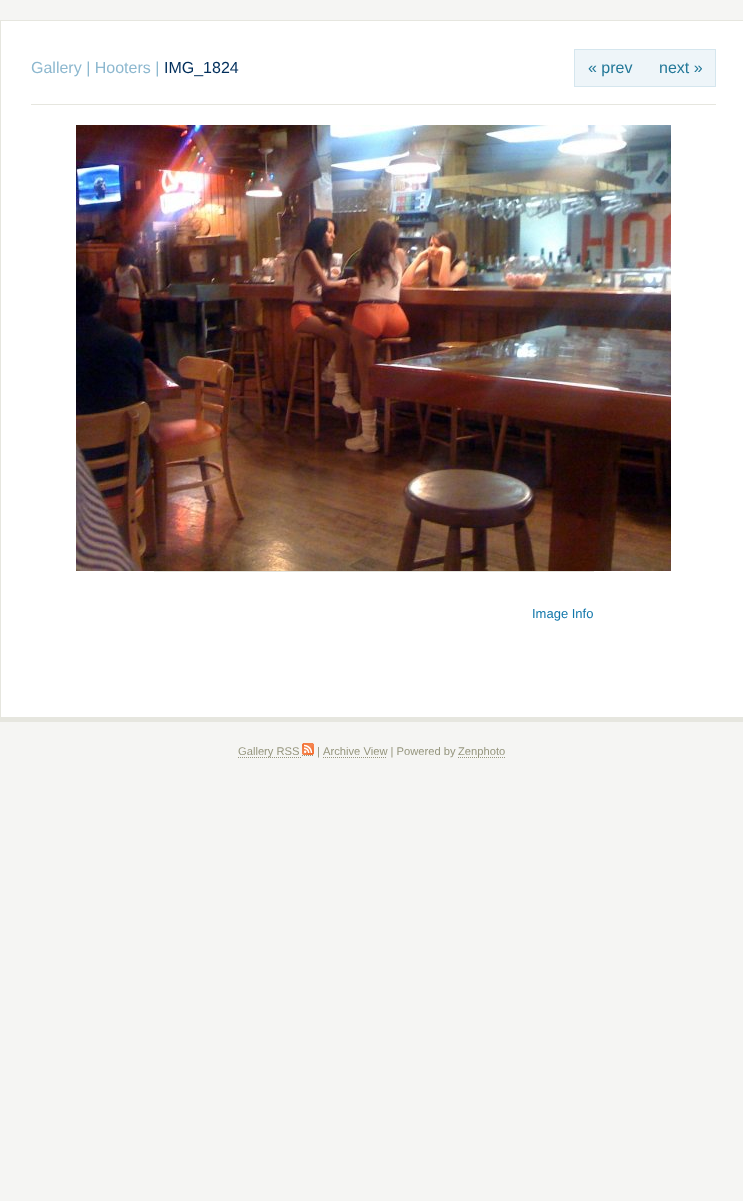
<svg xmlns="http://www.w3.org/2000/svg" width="743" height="1201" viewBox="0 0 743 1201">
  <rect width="100%" height="100%" fill="#f5f5f3"/>
  <rect x="1" y="21" width="742" height="696" fill="#ffffff"/>
  <rect x="0" y="20" width="743" height="1" fill="#e6e6df"/>
  <rect x="0" y="717" width="743" height="5" fill="#e6e6df"/>
  <rect x="0" y="20" width="1" height="702" fill="#e6e6df"/>
  <rect x="31" y="104" width="685" height="1" fill="#e6e6df"/>
  <text x="31" y="73" font-family="Liberation Sans" font-size="16" fill="#8db8cf">Gallery | Hooters |</text>
  <text x="164" y="73" font-family="Liberation Sans" font-size="16" fill="#002e5b">IMG_1824</text>
  <rect x="574.5" y="49.5" width="141" height="37" fill="#eef5f9" stroke="#d5e6ee"/>
  <text x="588" y="73" font-family="Liberation Sans" font-size="16" fill="#237898">« prev</text>
  <text x="659" y="73" font-family="Liberation Sans" font-size="16" fill="#237898">next »</text>
  <image x="76" y="125" width="595" height="446" href="img1.png"/>
  <rect x="154" y="571" width="440" height="1" fill="#e6e6df"/>
  <text x="532" y="618" font-family="Liberation Sans" font-size="13" fill="#1177aa">Image Info</text>
  <path d="M238 757.5H302" fill="none" stroke="#96967e" stroke-dasharray="1 1"/>
  <text x="238" y="755" font-family="Liberation Sans" font-size="11.2" fill="#96967e">Gallery RSS</text>
  <path d="M302 755.5H314" fill="none" stroke="#96967e" stroke-dasharray="1 1"/>
  <image x="302" y="743" width="12" height="12" href="img2.png"/>
  <text x="317" y="755" font-family="Liberation Sans" font-size="11.2" fill="#96967e">|</text>
  <path d="M323 757.5H387" fill="none" stroke="#96967e" stroke-dasharray="1 1"/>
  <text x="323" y="755" font-family="Liberation Sans" font-size="11.2" fill="#96967e">Archive View | Powered by</text>
  <path d="M458 757.5H505" fill="none" stroke="#96967e" stroke-dasharray="1 1"/>
  <text x="458" y="755" font-family="Liberation Sans" font-size="11.2" fill="#96967e">Zenphoto</text>
</svg>
